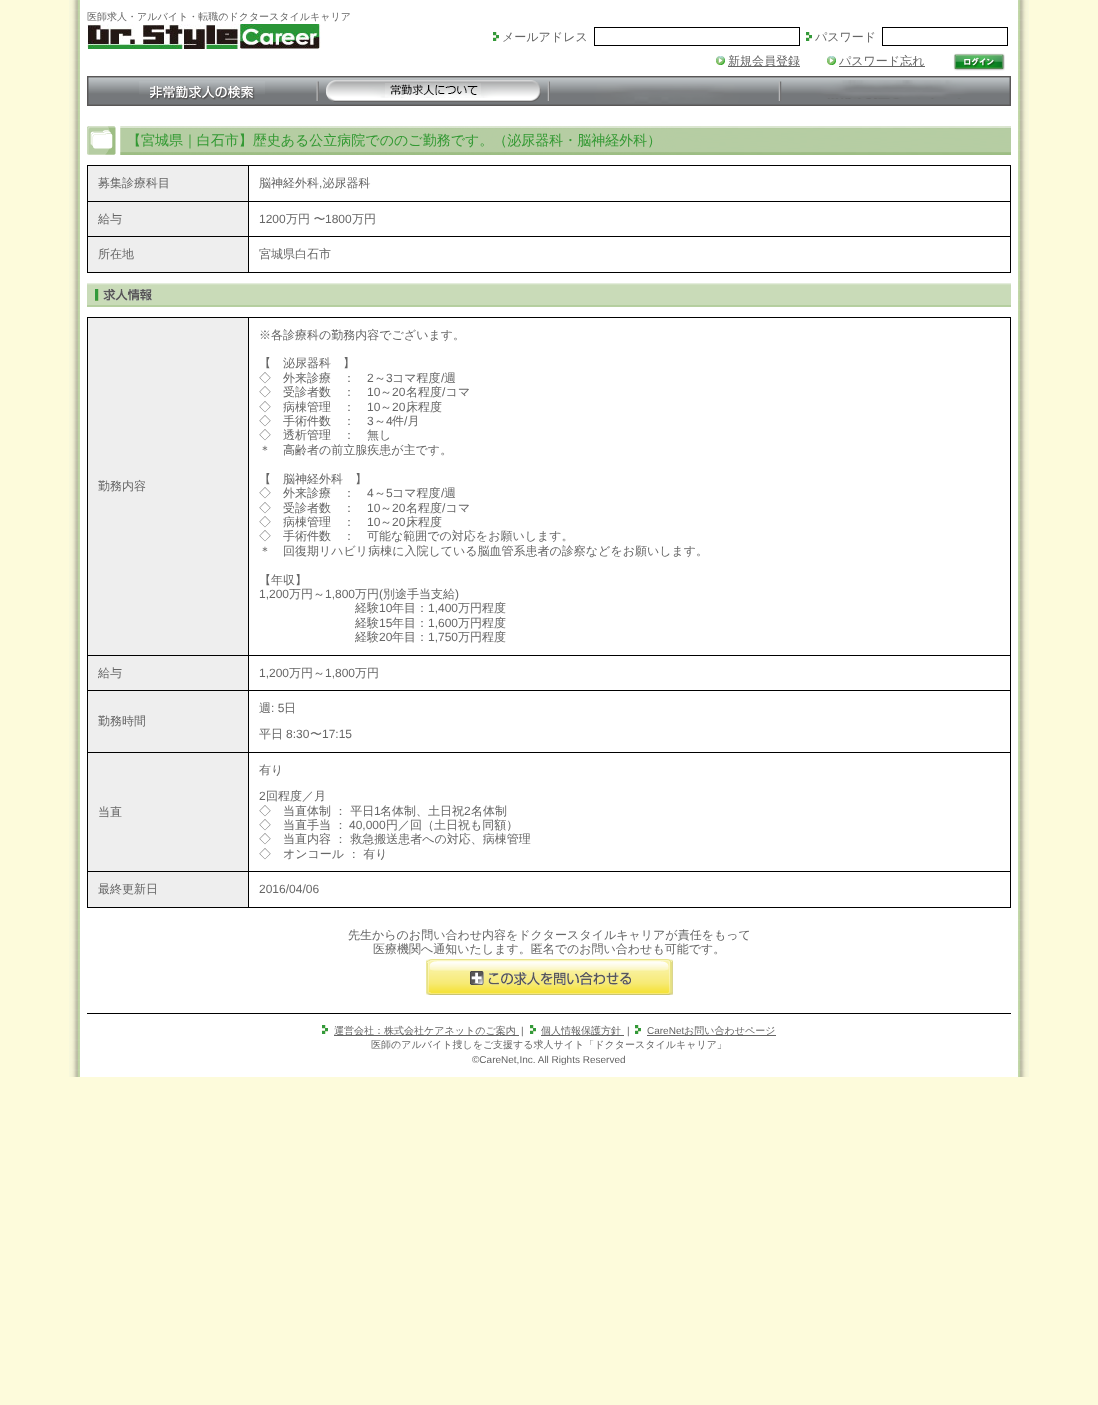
<svg xmlns="http://www.w3.org/2000/svg" width="1098" height="1405" viewBox="0 0 1098 1405">
  <rect width="100%" height="100%" fill="#fdfbdb"/>
  <image x="69" y="0" width="960" height="1077" href="img1.png"/>
  <text x="87" y="20" font-family="WenQuanYi Zen Hei" font-size="10" font-weight="500" fill="#666666">医師求人・アルバイト・転職のドクタースタイルキャリア</text>
  <image x="87" y="24" width="234" height="25" href="img2.png"/>
  <image x="493" y="32" width="6" height="9" href="img3.png"/>
  <text x="502" y="41" font-family="WenQuanYi Zen Hei" font-size="12" font-weight="500" fill="#666666">メールアドレス</text>
  <rect x="594.5" y="27.5" width="205" height="18" fill="none" stroke="#000000"/>
  <image x="806" y="32" width="6" height="9" href="img3.png"/>
  <text x="815" y="41" font-family="WenQuanYi Zen Hei" font-size="12" font-weight="500" fill="#666666">パスワード</text>
  <rect x="882.5" y="27.5" width="125" height="18" fill="none" stroke="#000000"/>
  <image x="716" y="56" width="9" height="9" href="img4.png"/>
  <rect x="728" y="66" width="72" height="1" fill="#646464"/>
  <text x="728" y="65" font-family="WenQuanYi Zen Hei" font-size="12" font-weight="500" fill="#666666">新規会員登録</text>
  <image x="827" y="56" width="9" height="9" href="img4.png"/>
  <rect x="839" y="66" width="86" height="1" fill="#646464"/>
  <text x="839" y="65" font-family="WenQuanYi Zen Hei" font-size="12" font-weight="500" fill="#666666">パスワード忘れ</text>
  <image x="953" y="53" width="52" height="18" href="img5.png"/>
  <image x="87" y="76" width="231" height="30" href="img6.png"/>
  <image x="318" y="76" width="231" height="30" href="img7.png"/>
  <image x="549" y="76" width="231" height="30" href="img8.png"/>
  <image x="780" y="76" width="231" height="30" href="img9.png"/>
  <image x="87" y="126" width="924" height="29" href="img10.png"/>
  <text x="127" y="145" font-family="WenQuanYi Zen Hei" font-size="14" font-weight="500" fill="#339933">【宮城県｜白石市】歴史ある公立病院でののご勤務です。（泌尿器科・脳神経外科）</text>
  <rect x="88" y="166" width="160" height="35" fill="#eeeeee"/>
  <rect x="248" y="165" width="763" height="1" fill="#000000"/>
  <rect x="248" y="201" width="763" height="1" fill="#000000"/>
  <rect x="248" y="236" width="763" height="1" fill="#000000"/>
  <rect x="1010" y="236" width="1" height="37" fill="#000000"/>
  <rect x="248" y="272" width="763" height="1" fill="#000000"/>
  <rect x="248" y="236" width="1" height="37" fill="#000000"/>
  <rect x="87" y="236" width="162" height="1" fill="#000000"/>
  <rect x="248" y="201" width="1" height="36" fill="#000000"/>
  <rect x="87" y="201" width="162" height="1" fill="#000000"/>
  <rect x="248" y="165" width="1" height="37" fill="#000000"/>
  <rect x="87" y="165" width="162" height="1" fill="#000000"/>
  <rect x="87" y="272" width="162" height="1" fill="#000000"/>
  <rect x="87" y="236" width="1" height="37" fill="#000000"/>
  <rect x="87" y="201" width="1" height="36" fill="#000000"/>
  <rect x="87" y="165" width="1" height="37" fill="#000000"/>
  <text x="98" y="187" font-family="WenQuanYi Zen Hei" font-size="12" font-weight="500" fill="#666666">募集診療科目</text>
  <rect x="1010" y="201" width="1" height="36" fill="#000000"/>
  <rect x="1010" y="165" width="1" height="37" fill="#000000"/>
  <text x="259" y="187" font-family="WenQuanYi Zen Hei" font-size="12" font-weight="500" fill="#666666">脳神経外科 泌尿器科</text>
  <text x="319" y="187" font-family="Liberation Sans" font-size="12" fill="#666666">,</text>
  <rect x="88" y="202" width="160" height="34" fill="#eeeeee"/>
  <text x="98" y="223" font-family="WenQuanYi Zen Hei" font-size="12" font-weight="500" fill="#666666">給与</text>
  <text x="259" y="223" font-family="Liberation Sans" font-size="12" fill="#666666">1200</text>
  <text x="286" y="223" font-family="WenQuanYi Zen Hei" font-size="12" font-weight="500" fill="#666666">万円 〜</text>
  <text x="325" y="223" font-family="Liberation Sans" font-size="12" fill="#666666">1800</text>
  <text x="352" y="223" font-family="WenQuanYi Zen Hei" font-size="12" font-weight="500" fill="#666666">万円</text>
  <rect x="88" y="237" width="160" height="35" fill="#eeeeee"/>
  <text x="98" y="258" font-family="WenQuanYi Zen Hei" font-size="12" font-weight="500" fill="#666666">所在地</text>
  <text x="259" y="258" font-family="WenQuanYi Zen Hei" font-size="12" font-weight="500" fill="#666666">宮城県白石市</text>
  <image x="87" y="283" width="924" height="24" href="img11.png"/>
  <rect x="88" y="318" width="160" height="337" fill="#eeeeee"/>
  <rect x="248" y="317" width="763" height="1" fill="#000000"/>
  <rect x="248" y="655" width="763" height="1" fill="#000000"/>
  <rect x="248" y="690" width="763" height="1" fill="#000000"/>
  <rect x="248" y="752" width="763" height="1" fill="#000000"/>
  <rect x="248" y="871" width="763" height="1" fill="#000000"/>
  <rect x="1010" y="871" width="1" height="37" fill="#000000"/>
  <rect x="248" y="907" width="763" height="1" fill="#000000"/>
  <rect x="248" y="871" width="1" height="37" fill="#000000"/>
  <rect x="87" y="871" width="162" height="1" fill="#000000"/>
  <rect x="248" y="752" width="1" height="120" fill="#000000"/>
  <rect x="87" y="752" width="162" height="1" fill="#000000"/>
  <rect x="248" y="690" width="1" height="63" fill="#000000"/>
  <rect x="87" y="690" width="162" height="1" fill="#000000"/>
  <rect x="248" y="655" width="1" height="36" fill="#000000"/>
  <rect x="87" y="655" width="162" height="1" fill="#000000"/>
  <rect x="248" y="317" width="1" height="339" fill="#000000"/>
  <rect x="87" y="317" width="162" height="1" fill="#000000"/>
  <rect x="87" y="907" width="162" height="1" fill="#000000"/>
  <rect x="87" y="871" width="1" height="37" fill="#000000"/>
  <rect x="87" y="752" width="1" height="120" fill="#000000"/>
  <rect x="87" y="690" width="1" height="63" fill="#000000"/>
  <rect x="87" y="655" width="1" height="36" fill="#000000"/>
  <rect x="87" y="317" width="1" height="339" fill="#000000"/>
  <text x="98" y="490" font-family="WenQuanYi Zen Hei" font-size="12" font-weight="500" fill="#666666">勤務内容</text>
  <rect x="1010" y="752" width="1" height="120" fill="#000000"/>
  <rect x="1010" y="690" width="1" height="63" fill="#000000"/>
  <rect x="1010" y="655" width="1" height="36" fill="#000000"/>
  <rect x="1010" y="317" width="1" height="339" fill="#000000"/>
  <text x="259" y="339" font-family="WenQuanYi Zen Hei" font-size="12" font-weight="500" fill="#666666">※各診療科の勤務内容でございます。</text>
  <text x="259" y="367" font-family="WenQuanYi Zen Hei" font-size="12" font-weight="500" fill="#666666">【　泌尿器科　】</text>
  <text x="259" y="382" font-family="WenQuanYi Zen Hei" font-size="12" font-weight="500" fill="#666666">◇　外来診療　：</text>
  <text x="367" y="382" font-family="Liberation Sans" font-size="12" fill="#666666">2</text>
  <text x="374" y="382" font-family="WenQuanYi Zen Hei" font-size="12" font-weight="500" fill="#666666">～</text>
  <text x="386" y="382" font-family="Liberation Sans" font-size="12" fill="#666666">3</text>
  <text x="392" y="382" font-family="WenQuanYi Zen Hei" font-size="12" font-weight="500" fill="#666666">コマ程度</text>
  <text x="441" y="382" font-family="Liberation Sans" font-size="12" fill="#666666">/</text>
  <text x="444" y="382" font-family="WenQuanYi Zen Hei" font-size="12" font-weight="500" fill="#666666">週</text>
  <text x="259" y="396" font-family="WenQuanYi Zen Hei" font-size="12" font-weight="500" fill="#666666">◇　受診者数　：</text>
  <text x="367" y="396" font-family="Liberation Sans" font-size="12" fill="#666666">10</text>
  <text x="392" y="396" font-family="Liberation Sans" font-size="12" fill="#666666">20</text>
  <text x="406" y="396" font-family="WenQuanYi Zen Hei" font-size="12" font-weight="500" fill="#666666">名程度 コマ</text>
  <text x="380" y="396" font-family="WenQuanYi Zen Hei" font-size="12" font-weight="500" fill="#666666">～</text>
  <text x="442" y="396" font-family="Liberation Sans" font-size="12" fill="#666666">/</text>
  <text x="259" y="411" font-family="WenQuanYi Zen Hei" font-size="12" font-weight="500" fill="#666666">◇　病棟管理　：</text>
  <text x="367" y="411" font-family="Liberation Sans" font-size="12" fill="#666666">10</text>
  <text x="380" y="411" font-family="WenQuanYi Zen Hei" font-size="12" font-weight="500" fill="#666666">～</text>
  <text x="392" y="411" font-family="Liberation Sans" font-size="12" fill="#666666">20</text>
  <text x="406" y="411" font-family="WenQuanYi Zen Hei" font-size="12" font-weight="500" fill="#666666">床程度</text>
  <text x="259" y="425" font-family="WenQuanYi Zen Hei" font-size="12" font-weight="500" fill="#666666">◇　手術件数　：</text>
  <text x="367" y="425" font-family="Liberation Sans" font-size="12" fill="#666666">3</text>
  <text x="386" y="425" font-family="Liberation Sans" font-size="12" fill="#666666">4</text>
  <text x="392" y="425" font-family="WenQuanYi Zen Hei" font-size="12" font-weight="500" fill="#666666">件 月</text>
  <text x="374" y="425" font-family="WenQuanYi Zen Hei" font-size="12" font-weight="500" fill="#666666">～</text>
  <text x="404" y="425" font-family="Liberation Sans" font-size="12" fill="#666666">/</text>
  <text x="259" y="439" font-family="WenQuanYi Zen Hei" font-size="12" font-weight="500" fill="#666666">◇　透析管理　：　無し</text>
  <text x="259" y="454" font-family="WenQuanYi Zen Hei" font-size="12" font-weight="500" fill="#666666">＊　高齢者の前立腺疾患が主です。</text>
  <text x="259" y="483" font-family="WenQuanYi Zen Hei" font-size="12" font-weight="500" fill="#666666">【　脳神経外科　】</text>
  <text x="259" y="497" font-family="WenQuanYi Zen Hei" font-size="12" font-weight="500" fill="#666666">◇　外来診療　：</text>
  <text x="367" y="497" font-family="Liberation Sans" font-size="12" fill="#666666">4</text>
  <text x="374" y="497" font-family="WenQuanYi Zen Hei" font-size="12" font-weight="500" fill="#666666">～</text>
  <text x="386" y="497" font-family="Liberation Sans" font-size="12" fill="#666666">5</text>
  <text x="392" y="497" font-family="WenQuanYi Zen Hei" font-size="12" font-weight="500" fill="#666666">コマ程度</text>
  <text x="441" y="497" font-family="Liberation Sans" font-size="12" fill="#666666">/</text>
  <text x="444" y="497" font-family="WenQuanYi Zen Hei" font-size="12" font-weight="500" fill="#666666">週</text>
  <text x="259" y="512" font-family="WenQuanYi Zen Hei" font-size="12" font-weight="500" fill="#666666">◇　受診者数　：</text>
  <text x="367" y="512" font-family="Liberation Sans" font-size="12" fill="#666666">10</text>
  <text x="392" y="512" font-family="Liberation Sans" font-size="12" fill="#666666">20</text>
  <text x="406" y="512" font-family="WenQuanYi Zen Hei" font-size="12" font-weight="500" fill="#666666">名程度 コマ</text>
  <text x="380" y="512" font-family="WenQuanYi Zen Hei" font-size="12" font-weight="500" fill="#666666">～</text>
  <text x="442" y="512" font-family="Liberation Sans" font-size="12" fill="#666666">/</text>
  <text x="259" y="526" font-family="WenQuanYi Zen Hei" font-size="12" font-weight="500" fill="#666666">◇　病棟管理　：</text>
  <text x="367" y="526" font-family="Liberation Sans" font-size="12" fill="#666666">10</text>
  <text x="380" y="526" font-family="WenQuanYi Zen Hei" font-size="12" font-weight="500" fill="#666666">～</text>
  <text x="392" y="526" font-family="Liberation Sans" font-size="12" fill="#666666">20</text>
  <text x="406" y="526" font-family="WenQuanYi Zen Hei" font-size="12" font-weight="500" fill="#666666">床程度</text>
  <text x="259" y="540" font-family="WenQuanYi Zen Hei" font-size="12" font-weight="500" fill="#666666">◇　手術件数　：　可能な範囲での対応をお願いします。</text>
  <text x="259" y="555" font-family="WenQuanYi Zen Hei" font-size="12" font-weight="500" fill="#666666">＊　回復期リハビリ病棟に入院している脳血管系患者の診察などをお願いします。</text>
  <text x="259" y="584" font-family="WenQuanYi Zen Hei" font-size="12" font-weight="500" fill="#666666">【年収】</text>
  <text x="259" y="598" font-family="Liberation Sans" font-size="12" fill="#666666">1,200</text>
  <text x="289" y="598" font-family="WenQuanYi Zen Hei" font-size="12" font-weight="500" fill="#666666">万円～</text>
  <text x="325" y="598" font-family="Liberation Sans" font-size="12" fill="#666666">1,800</text>
  <text x="355" y="598" font-family="WenQuanYi Zen Hei" font-size="12" font-weight="500" fill="#666666">万円</text>
  <text x="379" y="598" font-family="Liberation Sans" font-size="12" fill="#666666">(</text>
  <text x="383" y="598" font-family="WenQuanYi Zen Hei" font-size="12" font-weight="500" fill="#666666">別途手当支給</text>
  <text x="455" y="598" font-family="Liberation Sans" font-size="12" fill="#666666">)</text>
  <text x="355" y="612" font-family="WenQuanYi Zen Hei" font-size="12" font-weight="500" fill="#666666">経験</text>
  <text x="379" y="612" font-family="Liberation Sans" font-size="12" fill="#666666">10</text>
  <text x="392" y="612" font-family="WenQuanYi Zen Hei" font-size="12" font-weight="500" fill="#666666">年目：</text>
  <text x="428" y="612" font-family="Liberation Sans" font-size="12" fill="#666666">1,400</text>
  <text x="458" y="612" font-family="WenQuanYi Zen Hei" font-size="12" font-weight="500" fill="#666666">万円程度</text>
  <text x="355" y="627" font-family="WenQuanYi Zen Hei" font-size="12" font-weight="500" fill="#666666">経験</text>
  <text x="379" y="627" font-family="Liberation Sans" font-size="12" fill="#666666">15</text>
  <text x="392" y="627" font-family="WenQuanYi Zen Hei" font-size="12" font-weight="500" fill="#666666">年目：</text>
  <text x="428" y="627" font-family="Liberation Sans" font-size="12" fill="#666666">1,600</text>
  <text x="458" y="627" font-family="WenQuanYi Zen Hei" font-size="12" font-weight="500" fill="#666666">万円程度</text>
  <text x="355" y="641" font-family="WenQuanYi Zen Hei" font-size="12" font-weight="500" fill="#666666">経験</text>
  <text x="379" y="641" font-family="Liberation Sans" font-size="12" fill="#666666">20</text>
  <text x="392" y="641" font-family="WenQuanYi Zen Hei" font-size="12" font-weight="500" fill="#666666">年目：</text>
  <text x="428" y="641" font-family="Liberation Sans" font-size="12" fill="#666666">1,750</text>
  <text x="458" y="641" font-family="WenQuanYi Zen Hei" font-size="12" font-weight="500" fill="#666666">万円程度</text>
  <rect x="88" y="656" width="160" height="34" fill="#eeeeee"/>
  <text x="98" y="677" font-family="WenQuanYi Zen Hei" font-size="12" font-weight="500" fill="#666666">給与</text>
  <text x="259" y="677" font-family="Liberation Sans" font-size="12" fill="#666666">1,200</text>
  <text x="289" y="677" font-family="WenQuanYi Zen Hei" font-size="12" font-weight="500" fill="#666666">万円～</text>
  <text x="325" y="677" font-family="Liberation Sans" font-size="12" fill="#666666">1,800</text>
  <text x="355" y="677" font-family="WenQuanYi Zen Hei" font-size="12" font-weight="500" fill="#666666">万円</text>
  <rect x="88" y="691" width="160" height="61" fill="#eeeeee"/>
  <text x="98" y="725" font-family="WenQuanYi Zen Hei" font-size="12" font-weight="500" fill="#666666">勤務時間</text>
  <text x="259" y="712" font-family="WenQuanYi Zen Hei" font-size="12" font-weight="500" fill="#666666">週</text>
  <text x="271" y="712" font-family="Liberation Sans" font-size="12" fill="#666666">: 5</text>
  <text x="284" y="712" font-family="WenQuanYi Zen Hei" font-size="12" font-weight="500" fill="#666666">日</text>
  <text x="259" y="738" font-family="WenQuanYi Zen Hei" font-size="12" font-weight="500" fill="#666666">平日</text>
  <text x="286" y="738" font-family="Liberation Sans" font-size="12" fill="#666666">8:30</text>
  <text x="310" y="738" font-family="WenQuanYi Zen Hei" font-size="12" font-weight="500" fill="#666666">〜</text>
  <text x="322" y="738" font-family="Liberation Sans" font-size="12" fill="#666666">17:15</text>
  <rect x="88" y="753" width="160" height="118" fill="#eeeeee"/>
  <text x="98" y="816" font-family="WenQuanYi Zen Hei" font-size="12" font-weight="500" fill="#666666">当直</text>
  <text x="259" y="774" font-family="WenQuanYi Zen Hei" font-size="12" font-weight="500" fill="#666666">有り</text>
  <text x="259" y="800" font-family="Liberation Sans" font-size="12" fill="#666666">2</text>
  <text x="266" y="800" font-family="WenQuanYi Zen Hei" font-size="12" font-weight="500" fill="#666666">回程度／月</text>
  <text x="259" y="815" font-family="WenQuanYi Zen Hei" font-size="12" font-weight="500" fill="#666666">◇　当直体制 ： 平日</text>
  <text x="374" y="815" font-family="Liberation Sans" font-size="12" fill="#666666">1</text>
  <text x="380" y="815" font-family="WenQuanYi Zen Hei" font-size="12" font-weight="500" fill="#666666">名体制、土日祝</text>
  <text x="464" y="815" font-family="Liberation Sans" font-size="12" fill="#666666">2</text>
  <text x="471" y="815" font-family="WenQuanYi Zen Hei" font-size="12" font-weight="500" fill="#666666">名体制</text>
  <text x="259" y="829" font-family="WenQuanYi Zen Hei" font-size="12" font-weight="500" fill="#666666">◇　当直手当 ：</text>
  <text x="349" y="829" font-family="Liberation Sans" font-size="12" fill="#666666">40,000</text>
  <text x="386" y="829" font-family="WenQuanYi Zen Hei" font-size="12" font-weight="500" fill="#666666">円／回（土日祝も同額）</text>
  <text x="259" y="843" font-family="WenQuanYi Zen Hei" font-size="12" font-weight="500" fill="#666666">◇　当直内容 ： 救急搬送患者への対応、病棟管理</text>
  <text x="259" y="858" font-family="WenQuanYi Zen Hei" font-size="12" font-weight="500" fill="#666666">◇　オンコール ： 有り</text>
  <rect x="88" y="872" width="160" height="35" fill="#eeeeee"/>
  <text x="98" y="893" font-family="WenQuanYi Zen Hei" font-size="12" font-weight="500" fill="#666666">最終更新日</text>
  <text x="259" y="893" font-family="Liberation Sans" font-size="12" fill="#666666">2016/04/06</text>
  <text x="348" y="939" font-family="WenQuanYi Zen Hei" font-size="12" font-weight="500" fill="#666666">先生からのお問い合わせ内容をドクタースタイルキャリアが責任をもって</text>
  <text x="373" y="953" font-family="WenQuanYi Zen Hei" font-size="12" font-weight="500" fill="#666666">医療機関へ通知いたします。匿名でのお問い合わせも可能です。</text>
  <image x="426" y="959" width="247" height="36" href="img12.png"/>
  <rect x="87" y="1013" width="924" height="1" fill="#000000"/>
  <image x="322" y="1025" width="6" height="9" href="img3.png"/>
  <rect x="334" y="1035" width="185" height="1" fill="#646464"/>
  <text x="334" y="1034" font-family="WenQuanYi Zen Hei" font-size="10" font-weight="500" fill="#666666">運営会社：株式会社ケアネットのご案内</text>
  <text x="521" y="1034" font-family="Liberation Sans" font-size="10" fill="#666666">|</text>
  <image x="530" y="1025" width="6" height="9" href="img3.png"/>
  <rect x="541" y="1035" width="83" height="1" fill="#646464"/>
  <text x="541" y="1034" font-family="WenQuanYi Zen Hei" font-size="10" font-weight="500" fill="#666666">個人情報保護方針</text>
  <text x="627" y="1034" font-family="Liberation Sans" font-size="10" fill="#666666">|</text>
  <image x="635" y="1025" width="6" height="9" href="img3.png"/>
  <text x="647" y="1034" font-family="Liberation Sans" font-size="10" fill="#666666">CareNet</text>
  <rect x="647" y="1035" width="129" height="1" fill="#646464"/>
  <text x="684" y="1034" font-family="WenQuanYi Zen Hei" font-size="10" font-weight="500" fill="#666666">お問い合わせページ</text>
  <text x="371" y="1048" font-family="WenQuanYi Zen Hei" font-size="10" font-weight="500" fill="#666666">医師のアルバイト捜しをご支援する求人サイト「ドクタースタイルキャリア」</text>
  <text x="472" y="1063" font-family="Liberation Sans" font-size="10" fill="#666666">©CareNet,Inc. All Rights Reserved</text>
</svg>
